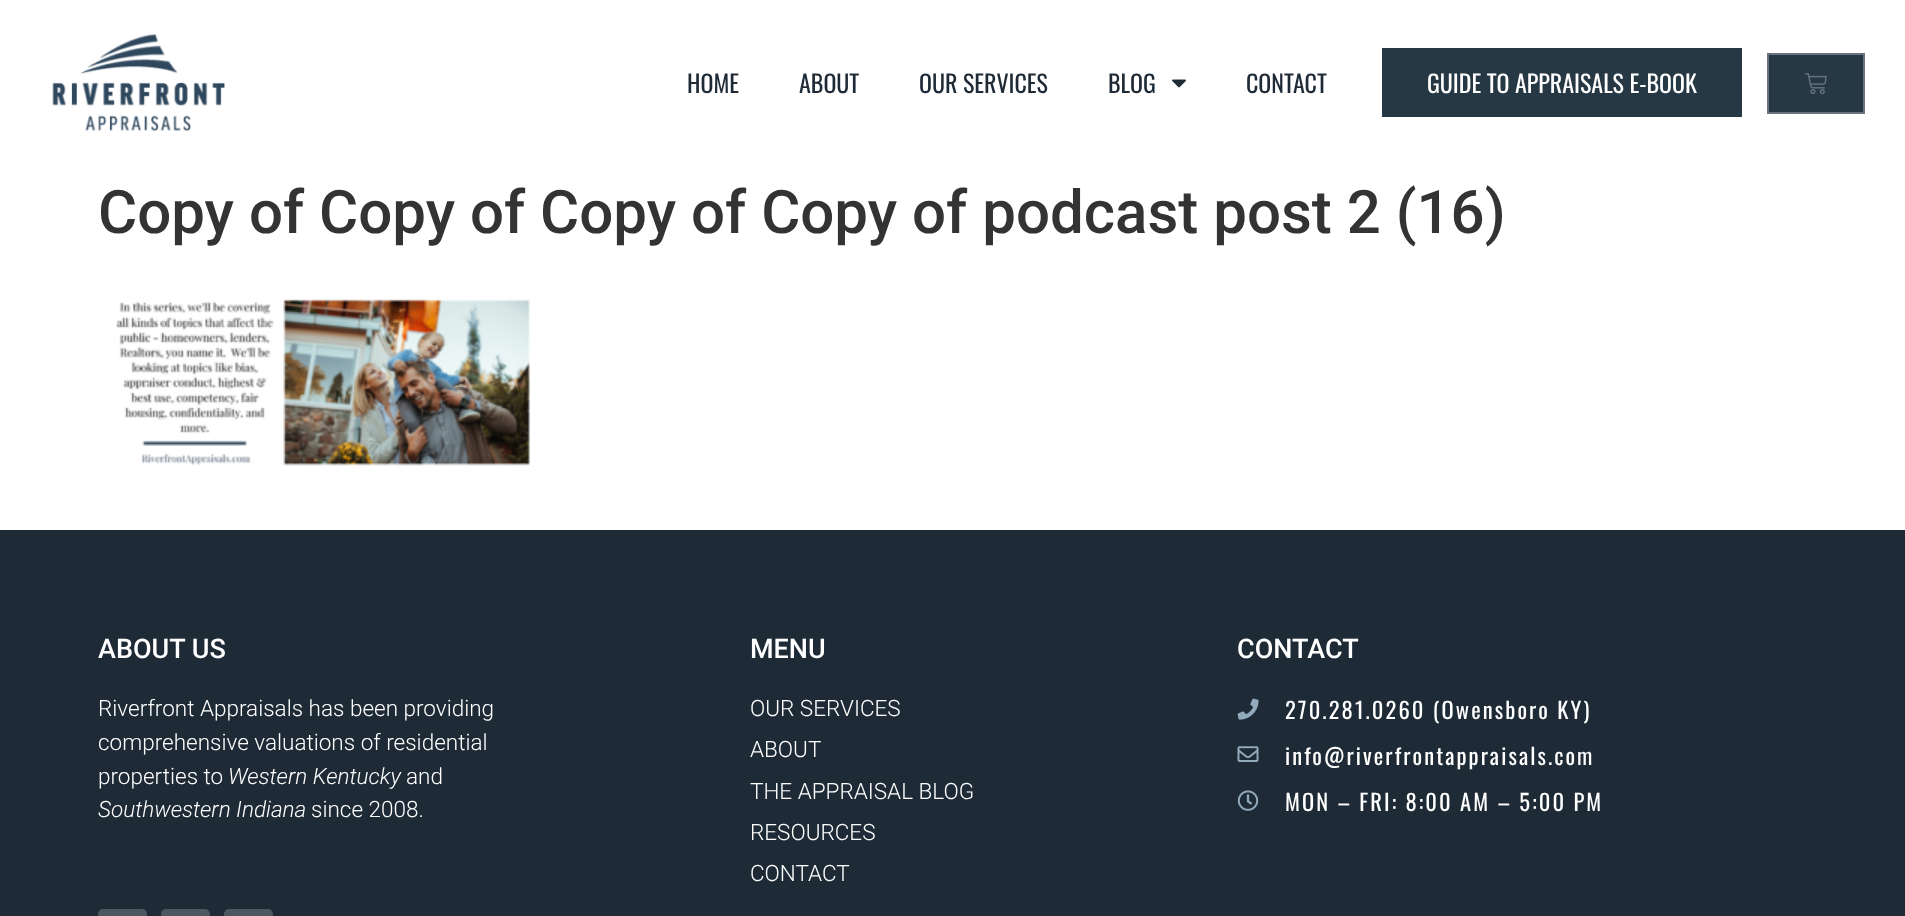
<svg xmlns="http://www.w3.org/2000/svg" width="1905" height="916" viewBox="0 0 1905 916">
  <rect width="100%" height="100%" fill="#ffffff"/>
  <image x="52" y="34" width="173" height="97" href="img1.png"/>
  <text x="687" y="93" font-family="Oswald" font-size="24" fill="#1e2a36">HOME</text>
  <text x="799" y="93" font-family="Oswald" font-size="24" fill="#1e2a36">ABOUT</text>
  <text x="919" y="93" font-family="Oswald" font-size="24" fill="#1e2a36">OUR SERVICES</text>
  <text x="1108" y="93" font-family="Oswald" font-size="24" fill="#1e2a36">BLOG</text>
  <image x="1172" y="79" width="14" height="9" href="img2.png"/>
  <text x="1246" y="93" font-family="Oswald" font-size="24" fill="#1e2a36">CONTACT</text>
  <rect x="1382" y="48" width="360" height="69" fill="#273845"/>
  <text x="1427" y="93" font-family="Oswald" font-size="24" fill="#ffffff">GUIDE TO APPRAISALS E-BOOK</text>
  <rect x="1768" y="54" width="96" height="59" fill="#273845" stroke="#69727d" stroke-width="2"/>
  <image x="1804" y="73" width="23" height="22" href="img3.png"/>
  <text x="98" y="233" font-family="Roboto" font-size="60" font-weight="500" fill="#333333">Copy of Copy of Copy of Copy of podcast post 2 (16)</text>
  <image x="116" y="299" width="414" height="167" href="img4.png"/>
  <rect x="0" y="530" width="1905" height="386" fill="#1e2a36"/>
  <text x="98" y="658" font-family="Roboto" font-size="27" font-weight="500" fill="#ffffff">ABOUT US</text>
  <text x="98" y="716" font-family="Roboto" font-size="22.5" font-weight="300" fill="#ffffff">Riverfront Appraisals has been providing</text>
  <text x="98" y="750" font-family="Roboto" font-size="22.5" font-weight="300" fill="#ffffff">comprehensive valuations of residential</text>
  <text x="98" y="784" font-family="Roboto" font-size="22.5" font-weight="300" fill="#ffffff">properties to</text>
  <text x="228" y="784" font-family="Roboto" font-size="22.5" font-weight="300" font-style="italic" fill="#ffffff">Western Kentucky</text>
  <text x="406" y="784" font-family="Roboto" font-size="22.5" font-weight="300" fill="#ffffff">and</text>
  <text x="98" y="817" font-family="Roboto" font-size="22.5" font-weight="300" font-style="italic" fill="#ffffff">Southwestern Indiana</text>
  <text x="311" y="817" font-family="Roboto" font-size="22.5" font-weight="300" fill="#ffffff">since 2008.</text>
  <rect x="98" y="909" width="49" height="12" rx="5" fill="#4d5760"/>
  <rect x="161" y="909" width="49" height="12" rx="5" fill="#4d5760"/>
  <rect x="224" y="909" width="49" height="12" rx="5" fill="#4d5760"/>
  <text x="750" y="658" font-family="Roboto" font-size="27" font-weight="500" fill="#ffffff">MENU</text>
  <text x="750" y="716" font-family="Roboto" font-size="22.5" font-weight="300" fill="#ffffff">OUR SERVICES</text>
  <text x="750" y="757" font-family="Roboto" font-size="22.5" font-weight="300" fill="#ffffff">ABOUT</text>
  <text x="750" y="799" font-family="Roboto" font-size="22.5" font-weight="300" fill="#ffffff">THE APPRAISAL BLOG</text>
  <text x="750" y="840" font-family="Roboto" font-size="22.5" font-weight="300" fill="#ffffff">RESOURCES</text>
  <text x="750" y="881" font-family="Roboto" font-size="22.5" font-weight="300" fill="#ffffff">CONTACT</text>
  <text x="1237" y="658" font-family="Roboto" font-size="27" font-weight="500" fill="#ffffff">CONTACT</text>
  <image x="1237" y="698" width="22" height="22" href="img5.png"/>
  <text x="1285" y="719" font-family="Oswald" font-size="22.5" letter-spacing="2.1" fill="#ffffff">270.281.0260 (Owensboro KY)</text>
  <image x="1237" y="746" width="22" height="16" href="img6.png"/>
  <text x="1285" y="765" font-family="Oswald" font-size="22.5" letter-spacing="2.1" fill="#ffffff">info@riverfrontappraisals.com</text>
  <image x="1237" y="790" width="22" height="21" href="img7.png"/>
  <text x="1285" y="811" font-family="Oswald" font-size="22.5" letter-spacing="2.1" fill="#ffffff">MON – FRI: 8:00 AM – 5:00 PM</text>
</svg>
